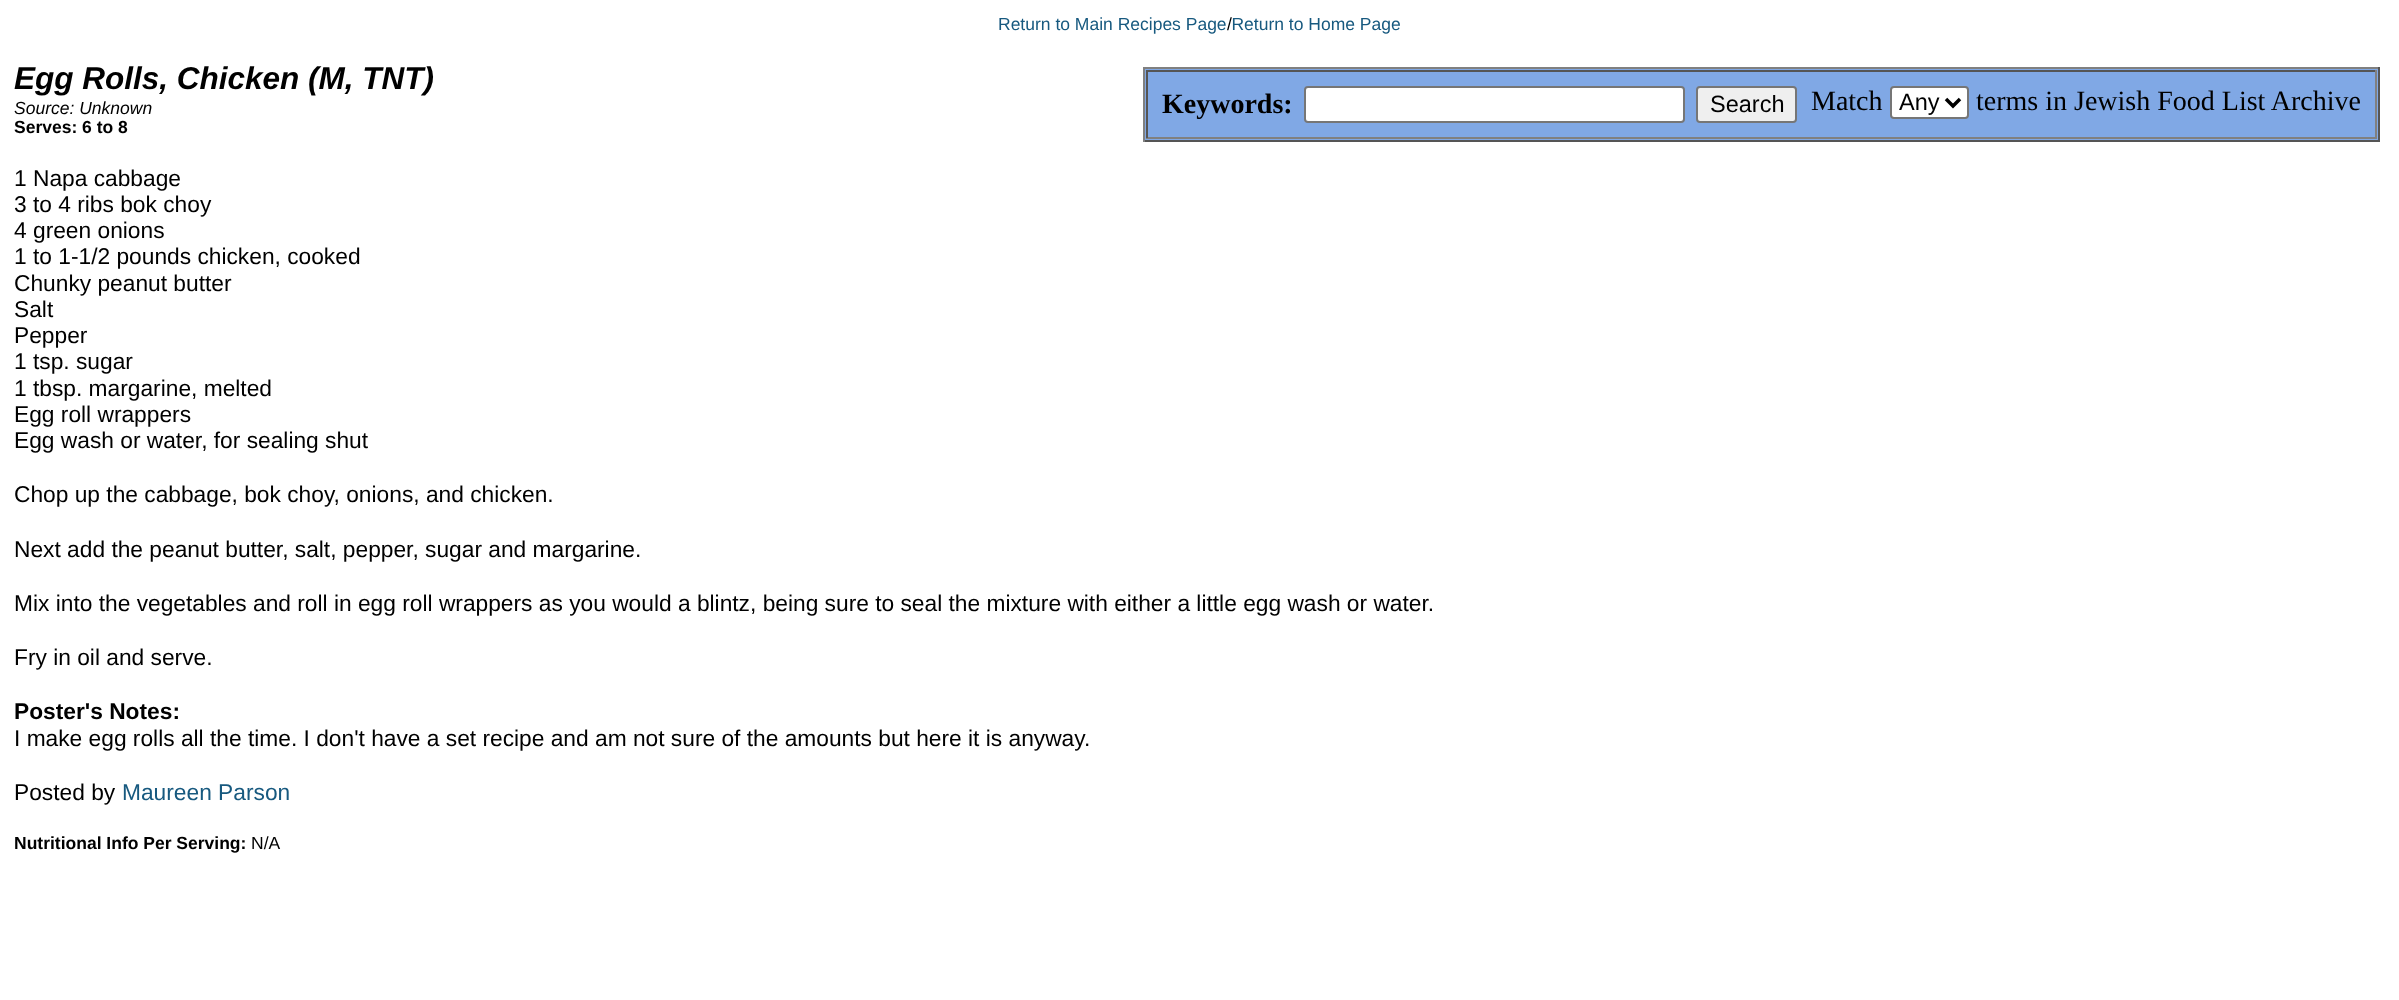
<svg xmlns="http://www.w3.org/2000/svg" width="2399" height="1000" viewBox="0 0 2399 1000">
  <rect width="100%" height="100%" fill="#ffffff"/>
  <text x="998" y="30" font-family="Liberation Sans" font-size="17.5" fill="#17597f">Return to Main Recipes Page Return to Home Page</text>
  <text x="1227" y="30" font-family="Liberation Sans" font-size="17.5" fill="#000000">/</text>
  <text x="14" y="89" font-family="Liberation Sans" font-size="31.5" font-weight="bold" font-style="italic" fill="#000000">Egg Rolls, Chicken (M, TNT)</text>
  <text x="14" y="114" font-family="Liberation Sans" font-size="17.5" font-style="italic" fill="#000000">Source: Unknown</text>
  <rect x="1145" y="69" width="1233" height="71" fill="#80a8e5"/>
  <rect x="1143" y="67" width="1237" height="2" fill="#808080"/>
  <rect x="2378" y="67" width="2" height="75" fill="#555555"/>
  <rect x="1143" y="140" width="1237" height="2" fill="#555555"/>
  <rect x="1143" y="67" width="2" height="75" fill="#808080"/>
  <rect x="1146" y="70" width="1231" height="2" fill="#555555"/>
  <rect x="2375" y="70" width="2" height="68" fill="#808080"/>
  <rect x="1146" y="137" width="1231" height="2" fill="#808080"/>
  <rect x="1146" y="70" width="2" height="68" fill="#555555"/>
  <text x="1162" y="113" font-family="Liberation Serif" font-size="28" font-weight="bold" fill="#000000">Keywords:</text>
  <rect x="1305" y="87" width="379" height="35" rx="3" fill="#ffffff" stroke="#767676" stroke-width="2"/>
  <rect x="1697" y="87" width="99" height="35" rx="3" fill="#efefef" stroke="#767676" stroke-width="2"/>
  <text x="1710" y="112" font-family="Liberation Sans" font-size="23.5" fill="#000000">Search</text>
  <text x="1811" y="110" font-family="Liberation Serif" font-size="28" fill="#000000">Match</text>
  <rect x="1891" y="87" width="77" height="31" rx="3" fill="#ffffff" stroke="#767676" stroke-width="2"/>
  <path d="M1946 99L1953 106L1960 99" fill="none" stroke="#000000" stroke-width="3.5"/>
  <text x="1899" y="110" font-family="Liberation Sans" font-size="23.5" fill="#000000">Any</text>
  <text x="1976" y="110" font-family="Liberation Serif" font-size="28" fill="#000000">terms in Jewish Food List Archive</text>
  <text x="14" y="133" font-family="Liberation Sans" font-size="17.5" font-weight="bold" fill="#000000">Serves: 6 to 8</text>
  <text x="14" y="186" font-family="Liberation Sans" font-size="22.75" fill="#000000">1 Napa cabbage</text>
  <text x="14" y="212" font-family="Liberation Sans" font-size="22.75" fill="#000000">3 to 4 ribs bok choy</text>
  <text x="14" y="238" font-family="Liberation Sans" font-size="22.75" fill="#000000">4 green onions</text>
  <text x="14" y="264" font-family="Liberation Sans" font-size="22.75" fill="#000000">1 to 1-1/2 pounds chicken, cooked</text>
  <text x="14" y="291" font-family="Liberation Sans" font-size="22.75" fill="#000000">Chunky peanut butter</text>
  <text x="14" y="317" font-family="Liberation Sans" font-size="22.75" fill="#000000">Salt</text>
  <text x="14" y="343" font-family="Liberation Sans" font-size="22.75" fill="#000000">Pepper</text>
  <text x="14" y="369" font-family="Liberation Sans" font-size="22.75" fill="#000000">1 tsp. sugar</text>
  <text x="14" y="396" font-family="Liberation Sans" font-size="22.75" fill="#000000">1 tbsp. margarine, melted</text>
  <text x="14" y="422" font-family="Liberation Sans" font-size="22.75" fill="#000000">Egg roll wrappers</text>
  <text x="14" y="448" font-family="Liberation Sans" font-size="22.75" fill="#000000">Egg wash or water, for sealing shut</text>
  <text x="14" y="502" font-family="Liberation Sans" font-size="22.75" fill="#000000">Chop up the cabbage, bok choy, onions, and chicken.</text>
  <text x="14" y="557" font-family="Liberation Sans" font-size="22.75" fill="#000000">Next add the peanut butter, salt, pepper, sugar and margarine.</text>
  <text x="14" y="611" font-family="Liberation Sans" font-size="22.75" fill="#000000">Mix into the vegetables and roll in egg roll wrappers as you would a blintz, being sure to seal the mixture with either a little egg wash or water.</text>
  <text x="14" y="665" font-family="Liberation Sans" font-size="22.75" fill="#000000">Fry in oil and serve.</text>
  <text x="14" y="719" font-family="Liberation Sans" font-size="22.75" font-weight="bold" fill="#000000">Poster's Notes:</text>
  <text x="14" y="746" font-family="Liberation Sans" font-size="22.75" fill="#000000">I make egg rolls all the time. I don't have a set recipe and am not sure of the amounts but here it is anyway.</text>
  <text x="14" y="800" font-family="Liberation Sans" font-size="22.75" fill="#000000">Posted by</text>
  <text x="122" y="800" font-family="Liberation Sans" font-size="22.75" fill="#17597f">Maureen Parson</text>
  <text x="14" y="849" font-family="Liberation Sans" font-size="17.5" font-weight="bold" fill="#000000">Nutritional Info Per Serving:</text>
  <text x="251" y="849" font-family="Liberation Sans" font-size="17.5" fill="#000000">N/A</text>
</svg>
